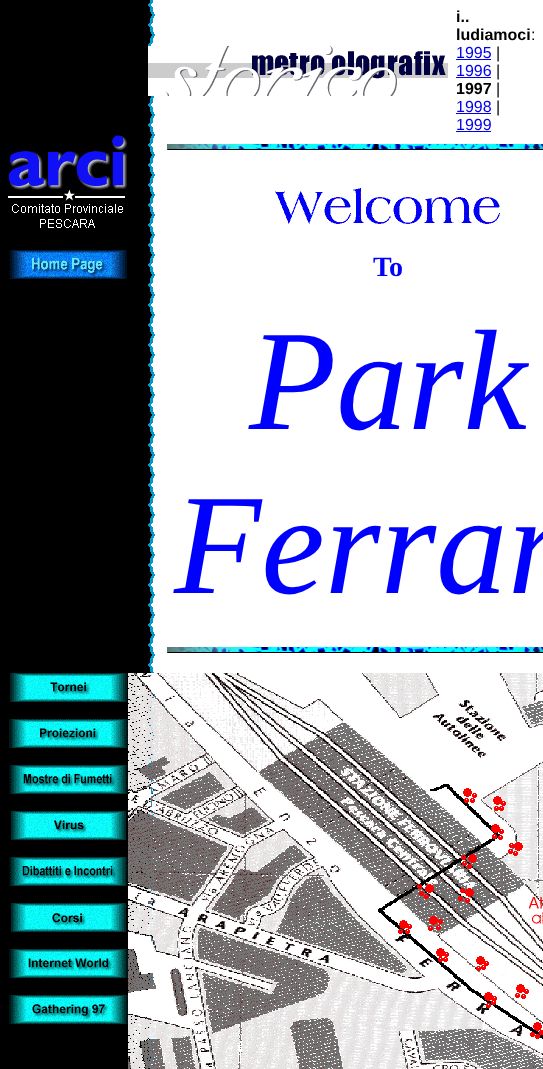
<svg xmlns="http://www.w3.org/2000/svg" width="543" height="1069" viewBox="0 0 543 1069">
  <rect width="100%" height="100%" fill="#ffffff"/>
  <image x="0" y="0" width="155" height="1069" href="img1.png"/>
  <image x="148" y="46" width="300" height="50" href="img2.png"/>
  <text x="456" y="22" font-family="Liberation Sans" font-size="16" font-weight="bold" fill="#000000">i..</text>
  <text x="456" y="40" font-family="Liberation Sans" font-size="16" font-weight="bold" fill="#000000">ludiamoci</text>
  <text x="531" y="40" font-family="Liberation Sans" font-size="16" fill="#000000">:</text>
  <text x="456" y="58" font-family="Liberation Sans" font-size="16" fill="#0000ee">1995</text>
  <rect x="456" y="59" width="35" height="1" fill="#0000ee"/>
  <text x="496" y="58" font-family="Liberation Sans" font-size="16" fill="#000000">|</text>
  <text x="456" y="76" font-family="Liberation Sans" font-size="16" fill="#0000ee">1996</text>
  <rect x="456" y="77" width="35" height="1" fill="#0000ee"/>
  <text x="496" y="76" font-family="Liberation Sans" font-size="16" fill="#000000">|</text>
  <text x="456" y="94" font-family="Liberation Sans" font-size="16" font-weight="bold" fill="#000000">1997</text>
  <text x="496" y="94" font-family="Liberation Sans" font-size="16" fill="#000000">|</text>
  <text x="456" y="112" font-family="Liberation Sans" font-size="16" fill="#0000ee">1998</text>
  <rect x="456" y="113" width="35" height="1" fill="#0000ee"/>
  <text x="496" y="112" font-family="Liberation Sans" font-size="16" fill="#000000">|</text>
  <text x="456" y="130" font-family="Liberation Sans" font-size="16" fill="#0000ee">1999</text>
  <rect x="456" y="131" width="35" height="1" fill="#0000ee"/>
  <image x="8" y="135" width="120" height="93" href="img3.png"/>
  <image x="9" y="250" width="118" height="29" href="img4.png"/>
  <image x="167" y="144" width="376" height="6" href="img5.png"/>
  <image x="275" y="188" width="225" height="36" href="img6.png"/>
  <text x="373" y="276" font-family="Liberation Serif" font-size="28" font-weight="bold" fill="#0000ff">To</text>
  <text x="249" y="429" font-family="Liberation Serif" font-size="143" font-style="italic" fill="#0000ff">Park</text>
  <text x="174" y="593" font-family="Liberation Serif" font-size="143" font-style="italic" fill="#0000ff">Ferrar</text>
  <image x="167" y="647" width="376" height="6" href="img5.png"/>
  <image x="10" y="673" width="117" height="29" href="img7.png"/>
  <image x="9" y="719" width="119" height="29" href="img8.png"/>
  <image x="9" y="765" width="119" height="29" href="img9.png"/>
  <image x="11" y="811" width="115" height="29" href="img10.png"/>
  <image x="9" y="857" width="119" height="29" href="img11.png"/>
  <image x="11" y="903" width="116" height="29" href="img12.png"/>
  <image x="9" y="949" width="119" height="29" href="img13.png"/>
  <image x="9" y="995" width="119" height="29" href="img14.png"/>
  <image x="128" y="673" width="415" height="396" href="img15.png"/>
</svg>
